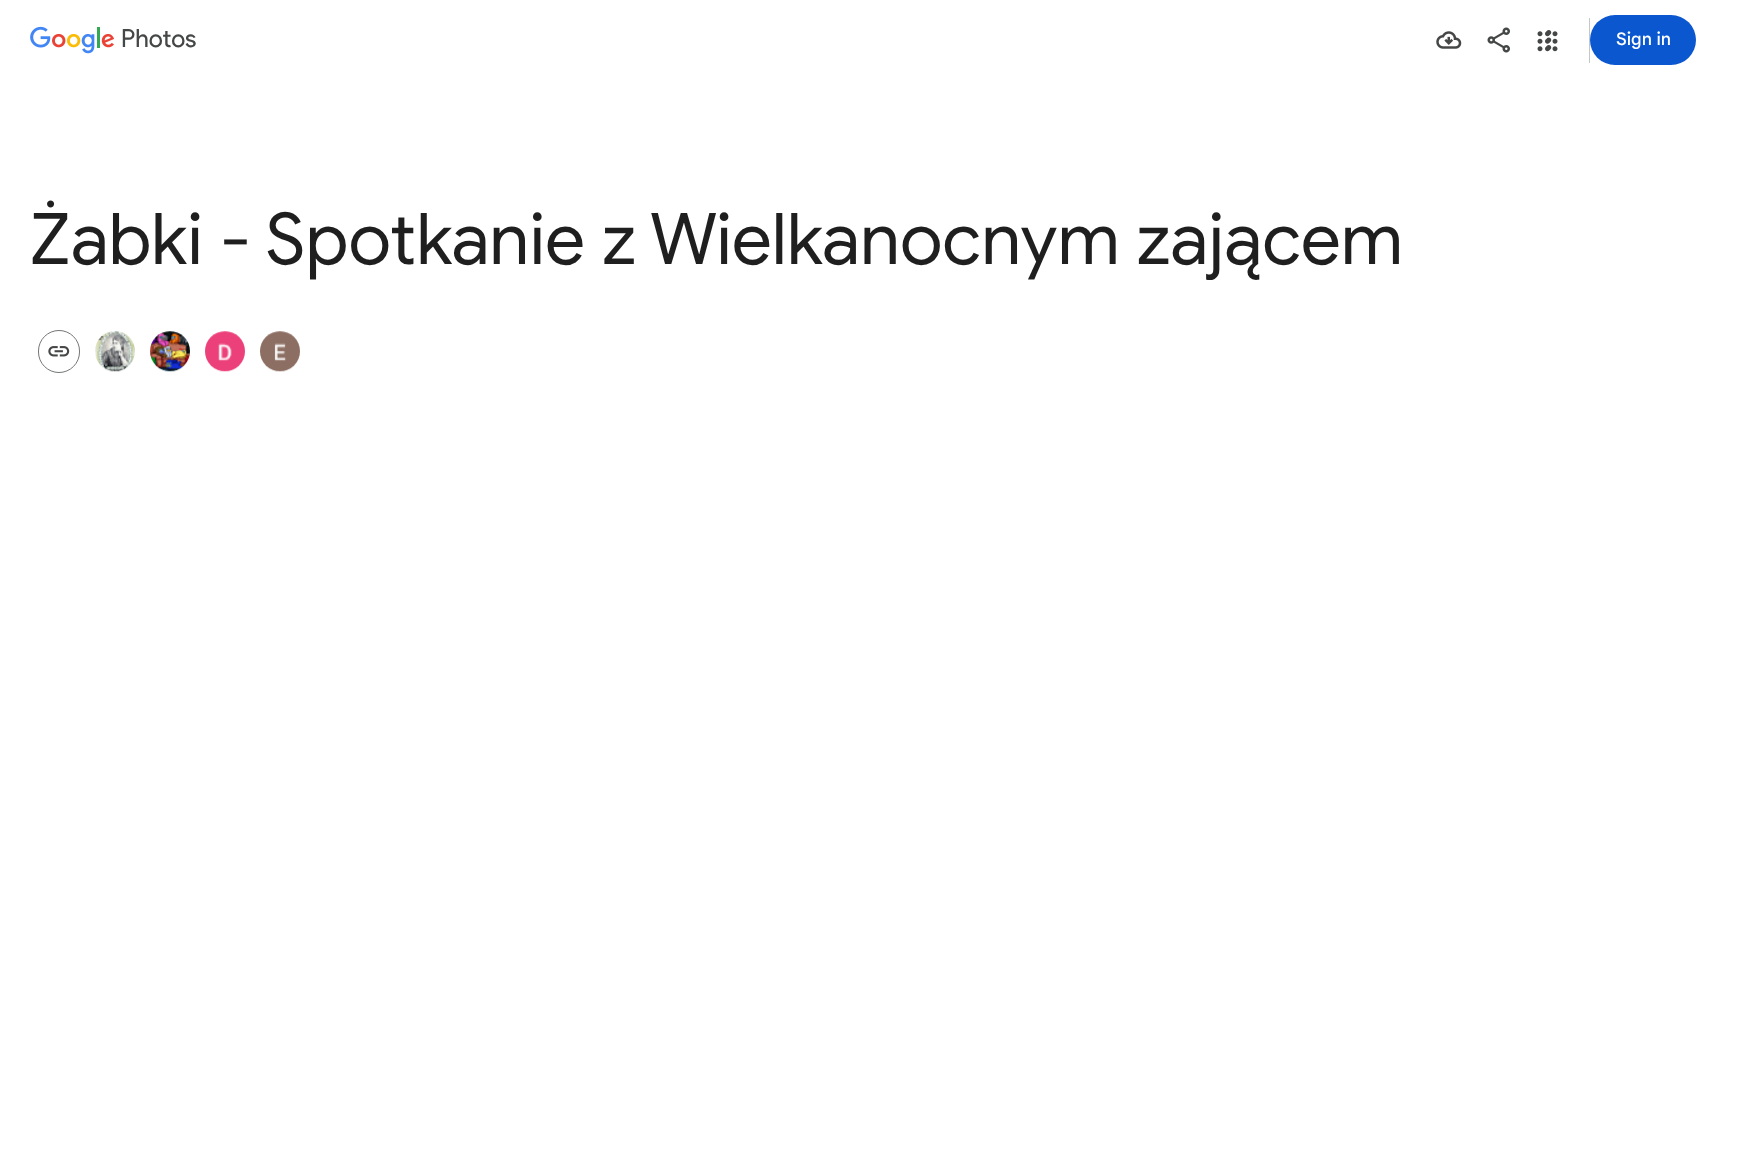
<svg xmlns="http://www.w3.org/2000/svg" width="1741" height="1154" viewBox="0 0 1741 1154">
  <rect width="100%" height="100%" fill="#ffffff"/>
  <image x="30" y="26" width="84" height="28" href="img1.png"/>
  <text x="121" y="47" font-family="Product Sans" font-size="25" fill="#444746">Photos</text>
  <image x="1436" y="31" width="26" height="18" href="img2.png"/>
  <image x="1487" y="27" width="23" height="26" href="img3.png"/>
  <image x="1546" y="30" width="6" height="20" href="img4.png"/>
  <rect x="1589" y="18" width="1" height="45" fill="#c4c7c5"/>
  <text x="30" y="264" font-family="Google Sans" font-size="71.25" fill="#1f1f1f">Żabki - Spotkanie z Wielkanocnym zającem</text>
  <rect x="38.5" y="330.5" width="41" height="42" rx="20.5" fill="none" stroke="#747775"/>
  <image x="48" y="346" width="22" height="11" href="img5.png"/>
  <image x="95" y="331" width="40" height="41" href="img6.png"/>
  <image x="150" y="331" width="40" height="41" href="img7.png"/>
  <image x="205" y="331" width="40" height="41" href="img8.png"/>
  <image x="260" y="331" width="40" height="41" href="img9.png"/>
  <image x="1537" y="31" width="21" height="21" href="img10.png"/>
  <rect x="1590" y="15" width="106" height="50" rx="25" fill="#0b57d0"/>
  <text x="1616" y="45" font-family="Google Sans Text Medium" font-size="17.5" font-weight="500" fill="#ffffff">Sign in</text>
</svg>
